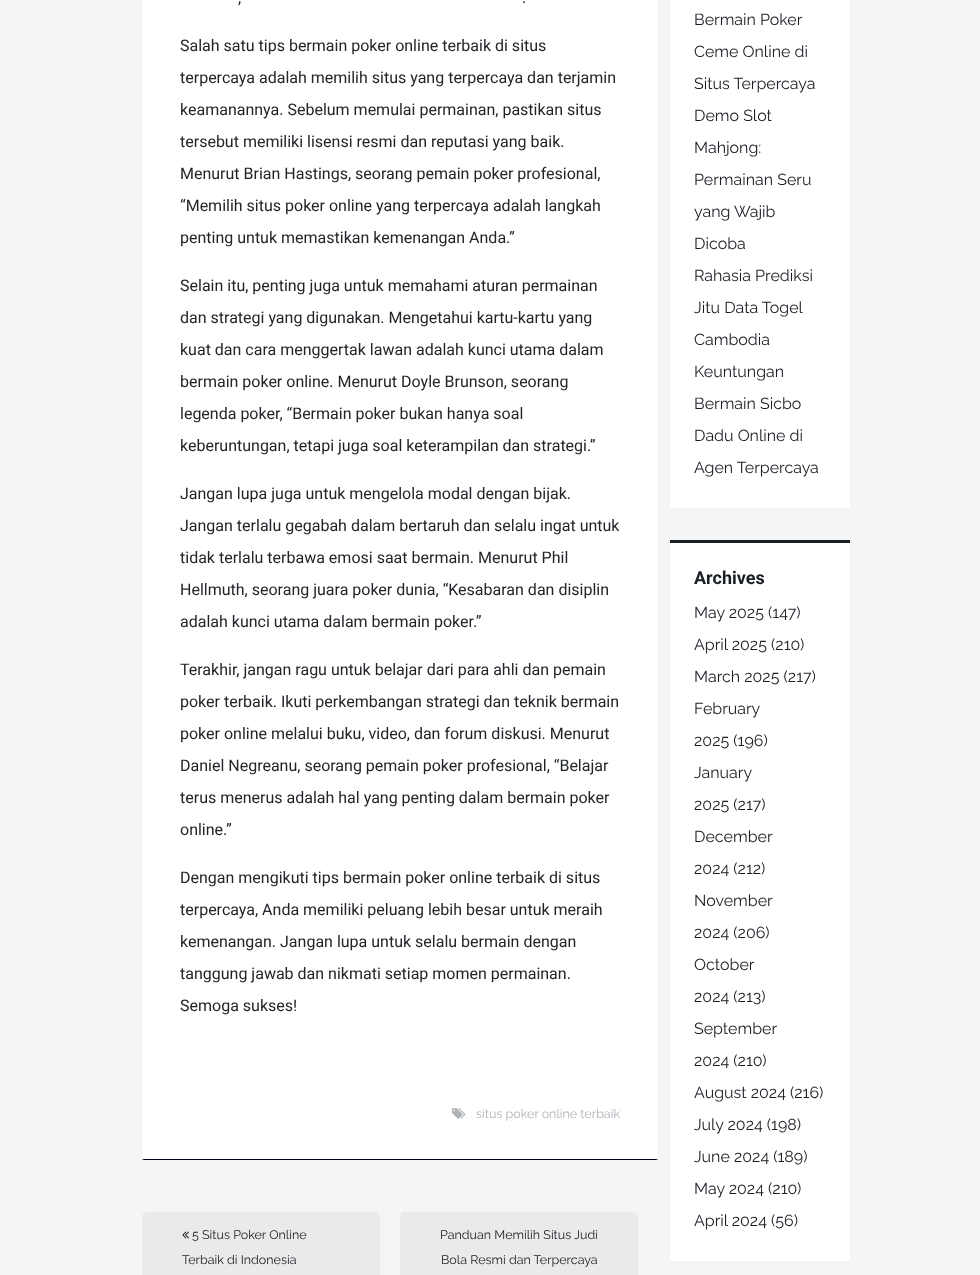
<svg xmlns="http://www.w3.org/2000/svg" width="980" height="1275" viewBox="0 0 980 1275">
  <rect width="100%" height="100%" fill="#f5f5f5"/>
  <rect x="142" y="-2" width="516" height="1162" rx="2" fill="#ffffff"/>
  <path d="M144 1160H656C657 1160 658 1159 658 1158C658 1159 657 1159 656 1159H144C143 1159 142 1159 142 1158C142 1159 143 1160 144 1160Z" fill="#030120"/>
  <text x="238" y="3" font-family="Roboto" font-size="16" fill="#212529">,</text>
  <text x="522" y="3" font-family="Roboto" font-size="16" fill="#212529">.</text>
  <text x="180" y="51" font-family="Roboto" font-size="16" fill="#212529">Salah satu tips bermain poker online terbaik di situs</text>
  <text x="180" y="83" font-family="Roboto" font-size="16" fill="#212529">terpercaya adalah memilih situs yang terpercaya dan terjamin</text>
  <text x="180" y="115" font-family="Roboto" font-size="16" fill="#212529">keamanannya. Sebelum memulai permainan, pastikan situs</text>
  <text x="180" y="147" font-family="Roboto" font-size="16" fill="#212529">tersebut memiliki lisensi resmi dan reputasi yang baik.</text>
  <text x="180" y="179" font-family="Roboto" font-size="16" fill="#212529">Menurut Brian Hastings, seorang pemain poker profesional,</text>
  <text x="180" y="211" font-family="Roboto" font-size="16" fill="#212529">“Memilih situs poker online yang terpercaya adalah langkah</text>
  <text x="180" y="243" font-family="Roboto" font-size="16" fill="#212529">penting untuk memastikan kemenangan Anda.”</text>
  <text x="180" y="291" font-family="Roboto" font-size="16" fill="#212529">Selain itu, penting juga untuk memahami aturan permainan</text>
  <text x="180" y="323" font-family="Roboto" font-size="16" fill="#212529">dan strategi yang digunakan. Mengetahui kartu-kartu yang</text>
  <text x="180" y="355" font-family="Roboto" font-size="16" fill="#212529">kuat dan cara menggertak lawan adalah kunci utama dalam</text>
  <text x="180" y="387" font-family="Roboto" font-size="16" fill="#212529">bermain poker online. Menurut Doyle Brunson, seorang</text>
  <text x="180" y="419" font-family="Roboto" font-size="16" fill="#212529">legenda poker, “Bermain poker bukan hanya soal</text>
  <text x="180" y="451" font-family="Roboto" font-size="16" fill="#212529">keberuntungan, tetapi juga soal keterampilan dan strategi.”</text>
  <text x="180" y="499" font-family="Roboto" font-size="16" fill="#212529">Jangan lupa juga untuk mengelola modal dengan bijak.</text>
  <text x="180" y="531" font-family="Roboto" font-size="16" fill="#212529">Jangan terlalu gegabah dalam bertaruh dan selalu ingat untuk</text>
  <text x="180" y="563" font-family="Roboto" font-size="16" fill="#212529">tidak terlalu terbawa emosi saat bermain. Menurut Phil</text>
  <text x="180" y="595" font-family="Roboto" font-size="16" fill="#212529">Hellmuth, seorang juara poker dunia, “Kesabaran dan disiplin</text>
  <text x="180" y="627" font-family="Roboto" font-size="16" fill="#212529">adalah kunci utama dalam bermain poker.”</text>
  <text x="180" y="675" font-family="Roboto" font-size="16" fill="#212529">Terakhir, jangan ragu untuk belajar dari para ahli dan pemain</text>
  <text x="180" y="707" font-family="Roboto" font-size="16" fill="#212529">poker terbaik. Ikuti perkembangan strategi dan teknik bermain</text>
  <text x="180" y="739" font-family="Roboto" font-size="16" fill="#212529">poker online melalui buku, video, dan forum diskusi. Menurut</text>
  <text x="180" y="771" font-family="Roboto" font-size="16" fill="#212529">Daniel Negreanu, seorang pemain poker profesional, “Belajar</text>
  <text x="180" y="803" font-family="Roboto" font-size="16" fill="#212529">terus menerus adalah hal yang penting dalam bermain poker</text>
  <text x="180" y="835" font-family="Roboto" font-size="16" fill="#212529">online.”</text>
  <text x="180" y="883" font-family="Roboto" font-size="16" fill="#212529">Dengan mengikuti tips bermain poker online terbaik di situs</text>
  <text x="180" y="915" font-family="Roboto" font-size="16" fill="#212529">terpercaya, Anda memiliki peluang lebih besar untuk meraih</text>
  <text x="180" y="947" font-family="Roboto" font-size="16" fill="#212529">kemenangan. Jangan lupa untuk selalu bermain dengan</text>
  <text x="180" y="979" font-family="Roboto" font-size="16" fill="#212529">tanggung jawab dan nikmati setiap momen permainan.</text>
  <text x="180" y="1011" font-family="Roboto" font-size="16" fill="#212529">Semoga sukses!</text>
  <image x="452" y="1108" width="14" height="11" href="img1.png"/>
  <text x="476" y="1118" font-family="Raleway" font-size="12.5" fill="#adb2b8">situs poker online terbaik</text>
  <rect x="142" y="1212" width="238" height="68" rx="5" fill="#eaeaea"/>
  <image x="182" y="1231" width="7" height="8" href="img2.png"/>
  <text x="192" y="1239" font-family="Raleway" font-size="12.5" fill="#191e24">5 Situs Poker Online</text>
  <text x="182" y="1264" font-family="Raleway" font-size="12.5" fill="#191e24">Terbaik di Indonesia</text>
  <rect x="400" y="1212" width="238" height="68" rx="5" fill="#eaeaea"/>
  <text x="440" y="1239" font-family="Raleway" font-size="12.5" fill="#191e24">Panduan Memilih Situs Judi</text>
  <text x="441" y="1264" font-family="Raleway" font-size="12.5" fill="#191e24">Bola Resmi dan Terpercaya</text>
  <rect x="670" y="0" width="180" height="508" fill="#ffffff"/>
  <text x="694" y="25" font-family="Raleway" font-size="16" fill="#191e24">Bermain Poker</text>
  <text x="694" y="57" font-family="Raleway" font-size="16" fill="#191e24">Ceme Online di</text>
  <text x="694" y="89" font-family="Raleway" font-size="16" fill="#191e24">Situs Terpercaya</text>
  <text x="694" y="121" font-family="Raleway" font-size="16" fill="#191e24">Demo Slot</text>
  <text x="694" y="153" font-family="Raleway" font-size="16" fill="#191e24">Mahjong:</text>
  <text x="694" y="185" font-family="Raleway" font-size="16" fill="#191e24">Permainan Seru</text>
  <text x="694" y="217" font-family="Raleway" font-size="16" fill="#191e24">yang Wajib</text>
  <text x="694" y="249" font-family="Raleway" font-size="16" fill="#191e24">Dicoba</text>
  <text x="694" y="281" font-family="Raleway" font-size="16" fill="#191e24">Rahasia Prediksi</text>
  <text x="694" y="313" font-family="Raleway" font-size="16" fill="#191e24">Jitu Data Togel</text>
  <text x="694" y="345" font-family="Raleway" font-size="16" fill="#191e24">Cambodia</text>
  <text x="694" y="377" font-family="Raleway" font-size="16" fill="#191e24">Keuntungan</text>
  <text x="694" y="409" font-family="Raleway" font-size="16" fill="#191e24">Bermain Sicbo</text>
  <text x="694" y="441" font-family="Raleway" font-size="16" fill="#191e24">Dadu Online di</text>
  <text x="694" y="473" font-family="Raleway" font-size="16" fill="#191e24">Agen Terpercaya</text>
  <rect x="670" y="543" width="180" height="718" fill="#ffffff"/>
  <rect x="670" y="540" width="180" height="3" fill="#191e24"/>
  <text x="694" y="584" font-family="Roboto" font-size="18" font-weight="bold" fill="#191e24">Archives</text>
  <text x="694" y="618" font-family="Raleway" font-size="16" fill="#191e24">May 2025 (147)</text>
  <text x="694" y="650" font-family="Raleway" font-size="16" fill="#191e24">April 2025 (210)</text>
  <text x="694" y="682" font-family="Raleway" font-size="16" fill="#191e24">March 2025 (217)</text>
  <text x="694" y="714" font-family="Raleway" font-size="16" fill="#191e24">February</text>
  <text x="694" y="746" font-family="Raleway" font-size="16" fill="#191e24">2025 (196)</text>
  <text x="694" y="778" font-family="Raleway" font-size="16" fill="#191e24">January</text>
  <text x="694" y="810" font-family="Raleway" font-size="16" fill="#191e24">2025 (217)</text>
  <text x="694" y="842" font-family="Raleway" font-size="16" fill="#191e24">December</text>
  <text x="694" y="874" font-family="Raleway" font-size="16" fill="#191e24">2024 (212)</text>
  <text x="694" y="906" font-family="Raleway" font-size="16" fill="#191e24">November</text>
  <text x="694" y="938" font-family="Raleway" font-size="16" fill="#191e24">2024 (206)</text>
  <text x="694" y="970" font-family="Raleway" font-size="16" fill="#191e24">October</text>
  <text x="694" y="1002" font-family="Raleway" font-size="16" fill="#191e24">2024 (213)</text>
  <text x="694" y="1034" font-family="Raleway" font-size="16" fill="#191e24">September</text>
  <text x="694" y="1066" font-family="Raleway" font-size="16" fill="#191e24">2024 (210)</text>
  <text x="694" y="1098" font-family="Raleway" font-size="16" fill="#191e24">August 2024 (216)</text>
  <text x="694" y="1130" font-family="Raleway" font-size="16" fill="#191e24">July 2024 (198)</text>
  <text x="694" y="1162" font-family="Raleway" font-size="16" fill="#191e24">June 2024 (189)</text>
  <text x="694" y="1194" font-family="Raleway" font-size="16" fill="#191e24">May 2024 (210)</text>
  <text x="694" y="1226" font-family="Raleway" font-size="16" fill="#191e24">April 2024 (56)</text>
</svg>
